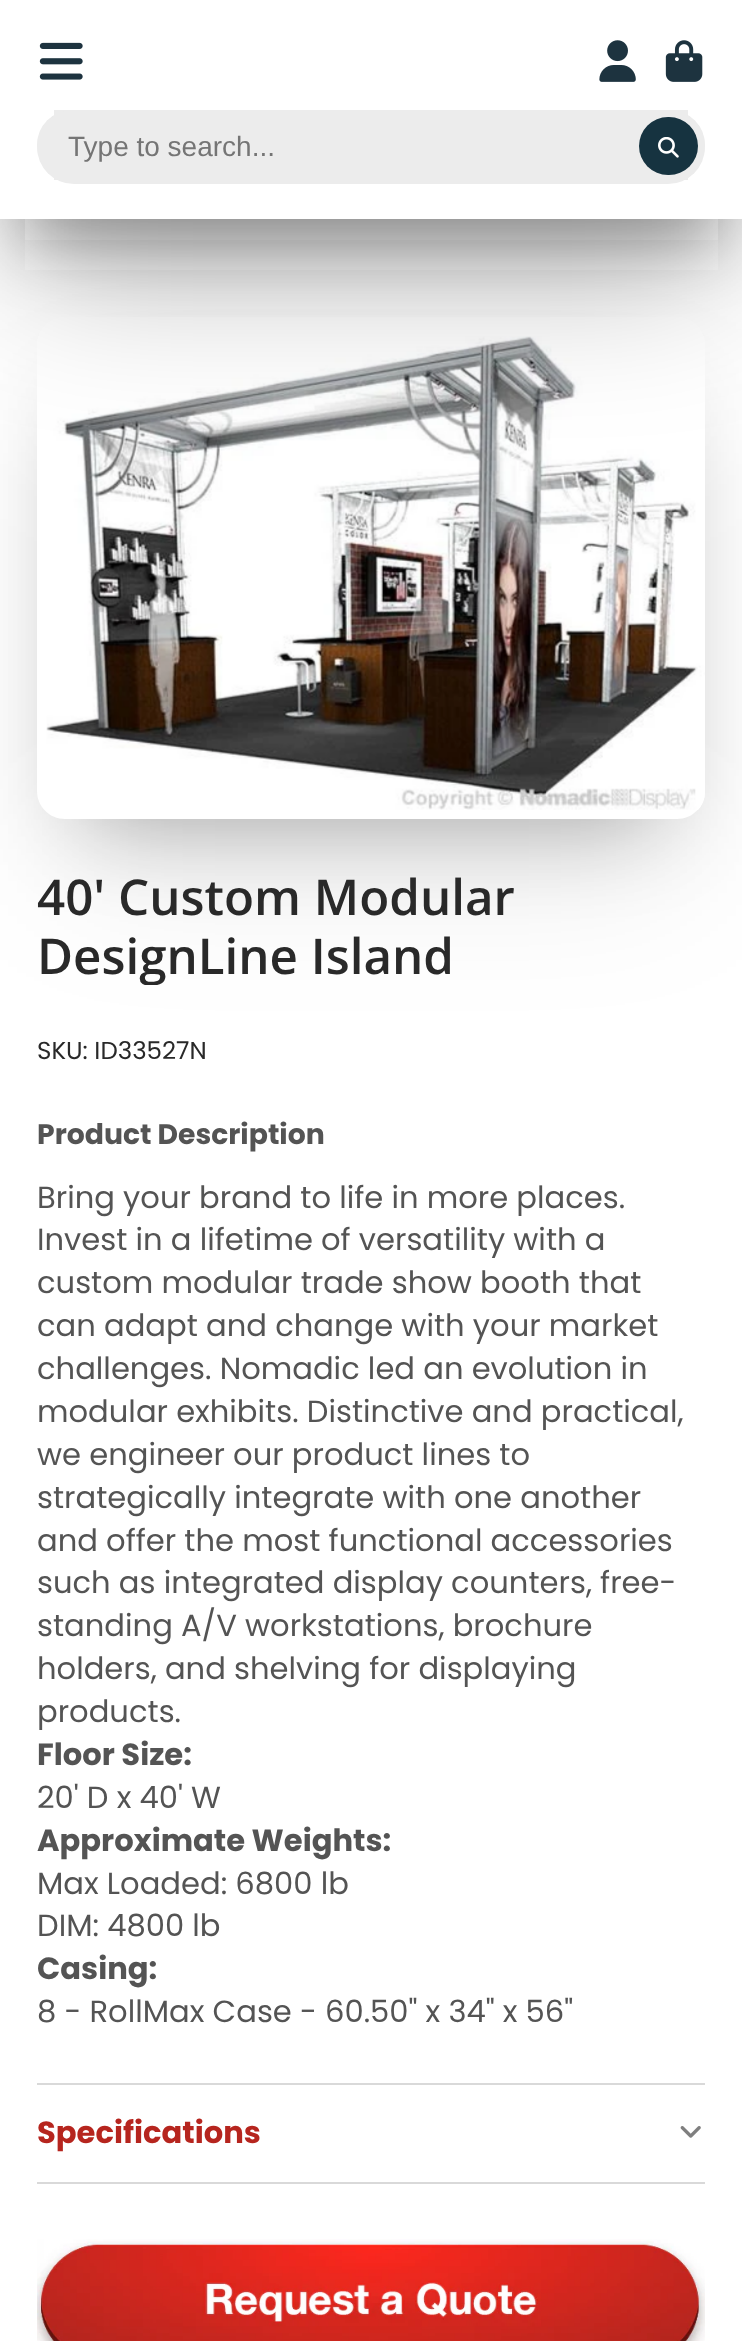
<svg xmlns="http://www.w3.org/2000/svg" width="742" height="2341" viewBox="0 0 742 2341">
  <defs>
    <clipPath id="clip1"><path d="M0 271H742V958H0ZM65 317H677C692.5 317 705 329.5 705 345V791C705 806.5 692.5 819 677 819H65C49.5 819 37 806.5 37 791V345C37 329.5 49.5 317 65 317Z" clip-rule="evenodd"/></clipPath>
    <filter id="blur1" x="-50%" y="-200%" width="200%" height="500%"><feGaussianBlur stdDeviation="46"/></filter>
    <clipPath id="clip2"><path d="M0 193H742V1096H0ZM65 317H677C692.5 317 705 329.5 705 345V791C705 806.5 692.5 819 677 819H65C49.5 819 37 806.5 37 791V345C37 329.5 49.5 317 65 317Z" clip-rule="evenodd"/></clipPath>
    <filter id="blur2" x="-50%" y="-200%" width="200%" height="500%"><feGaussianBlur stdDeviation="76.5"/></filter>
    <filter id="blur3" x="-50%" y="-200%" width="200%" height="500%"><feGaussianBlur stdDeviation="33.5"/></filter>
    <clipPath id="clip3"><rect x="37" y="868" width="668" height="117"/></clipPath>
  </defs>
  <rect width="100%" height="100%" fill="#ffffff"/>
  <g clip-path="url(#clip1)">
    <rect x="82" y="410" width="578" height="409" fill="#1c1c1c" fill-opacity="0.3" filter="url(#blur1)"/>
  </g>
  <g clip-path="url(#clip2)">
    <rect x="68" y="424" width="608" height="441" fill="#1c1c1c" fill-opacity="0.1" filter="url(#blur2)"/>
  </g>
  <image x="46" y="336" width="659" height="474" href="img5.png"/>
  <rect x="25" y="70" width="693" height="170" fill="#1c1c1c" fill-opacity="0.4" filter="url(#blur3)"/>
  <rect x="25" y="102" width="693" height="169" fill="#1c1c1c" fill-opacity="0.3" filter="url(#blur2)"/>
  <rect x="0" y="0" width="742" height="219" fill="#ffffff"/>
  <image x="39" y="42" width="44" height="38" href="img1.png"/>
  <image x="599" y="40" width="37" height="42" href="img2.png"/>
  <image x="665" y="40" width="38" height="42" href="img3.png"/>
  <rect x="37" y="110" width="668" height="70" rx="35" fill="#ececec"/>
  <rect x="54" y="110" width="634" height="70" fill="#ececec"/>
  <rect x="37" y="110" width="668" height="74" rx="37" fill="#ececec"/>
  <text x="68" y="156" font-family="Liberation Sans" font-size="28" fill="#757575">Type to search...</text>
  <rect x="639" y="117" width="59" height="58" rx="29" fill="#163340"/>
  <image x="658" y="137" width="21" height="21" href="img4.png"/>
  <text x="37" y="915" font-family="Open Sans" font-size="49.25" font-weight="600" fill="#292929">40' Custom Modular</text>
  <g clip-path="url(#clip3)">
    <text x="37" y="974" font-family="Open Sans" font-size="49.25" font-weight="600" fill="#292929">DesignLine Island</text>
  </g>
  <text x="37" y="1059" font-family="Poppins" font-size="24.5" fill="#292929">SKU: ID33527N</text>
  <text x="37" y="1144" font-family="Poppins" font-size="28.25" font-weight="bold" fill="#545454">Product Description</text>
  <text x="37" y="1208" font-family="Poppins" font-size="30.6" fill="#545454">Bring your brand to life in more places.</text>
  <text x="37" y="1250" font-family="Poppins" font-size="30.6" fill="#545454">Invest in a lifetime of versatility with a</text>
  <text x="37" y="1293" font-family="Poppins" font-size="30.6" fill="#545454">custom modular trade show booth that</text>
  <text x="37" y="1336" font-family="Poppins" font-size="30.6" fill="#545454">can adapt and change with your market</text>
  <text x="37" y="1379" font-family="Poppins" font-size="30.6" fill="#545454">challenges. Nomadic led an evolution in</text>
  <text x="37" y="1422" font-family="Poppins" font-size="30.6" fill="#545454">modular exhibits. Distinctive and practical,</text>
  <text x="37" y="1465" font-family="Poppins" font-size="30.6" fill="#545454">we engineer our product lines to</text>
  <text x="37" y="1508" font-family="Poppins" font-size="30.6" fill="#545454">strategically integrate with one another</text>
  <text x="37" y="1551" font-family="Poppins" font-size="30.6" fill="#545454">and offer the most functional accessories</text>
  <text x="37" y="1593" font-family="Poppins" font-size="30.6" fill="#545454">such as integrated display counters, free-</text>
  <text x="37" y="1636" font-family="Poppins" font-size="30.6" fill="#545454">standing A/V workstations, brochure</text>
  <text x="37" y="1679" font-family="Poppins" font-size="30.6" fill="#545454">holders, and shelving for displaying</text>
  <text x="37" y="1722" font-family="Poppins" font-size="30.6" fill="#545454">products.</text>
  <text x="37" y="1765" font-family="Poppins" font-size="30.6" font-weight="bold" fill="#545454">Floor Size:</text>
  <text x="37" y="1808" font-family="Poppins" font-size="30.6" fill="#545454">20' D x 40' W</text>
  <text x="37" y="1851" font-family="Poppins" font-size="30.6" font-weight="bold" fill="#545454">Approximate Weights:</text>
  <text x="37" y="1894" font-family="Poppins" font-size="30.6" fill="#545454">Max Loaded: 6800 lb</text>
  <text x="37" y="1936" font-family="Poppins" font-size="30.6" fill="#545454">DIM: 4800 lb</text>
  <text x="37" y="1979" font-family="Poppins" font-size="30.6" font-weight="bold" fill="#545454">Casing:</text>
  <text x="37" y="2022" font-family="Poppins" font-size="30.6" fill="#545454">8 - RollMax Case - 60.50" x 34" x 56"</text>
  <rect x="37" y="2083" width="668" height="2" fill="#d9d9d9"/>
  <rect x="37" y="2182" width="668" height="2" fill="#d9d9d9"/>
  <text x="37" y="2143" font-family="Poppins" font-size="30.6" font-weight="bold" fill="#b6251e">Specifications</text>
  <image x="680" y="2126" width="21" height="12" href="img6.png"/>
  <image x="37" y="2239" width="668" height="102" href="img7.png"/>
</svg>
